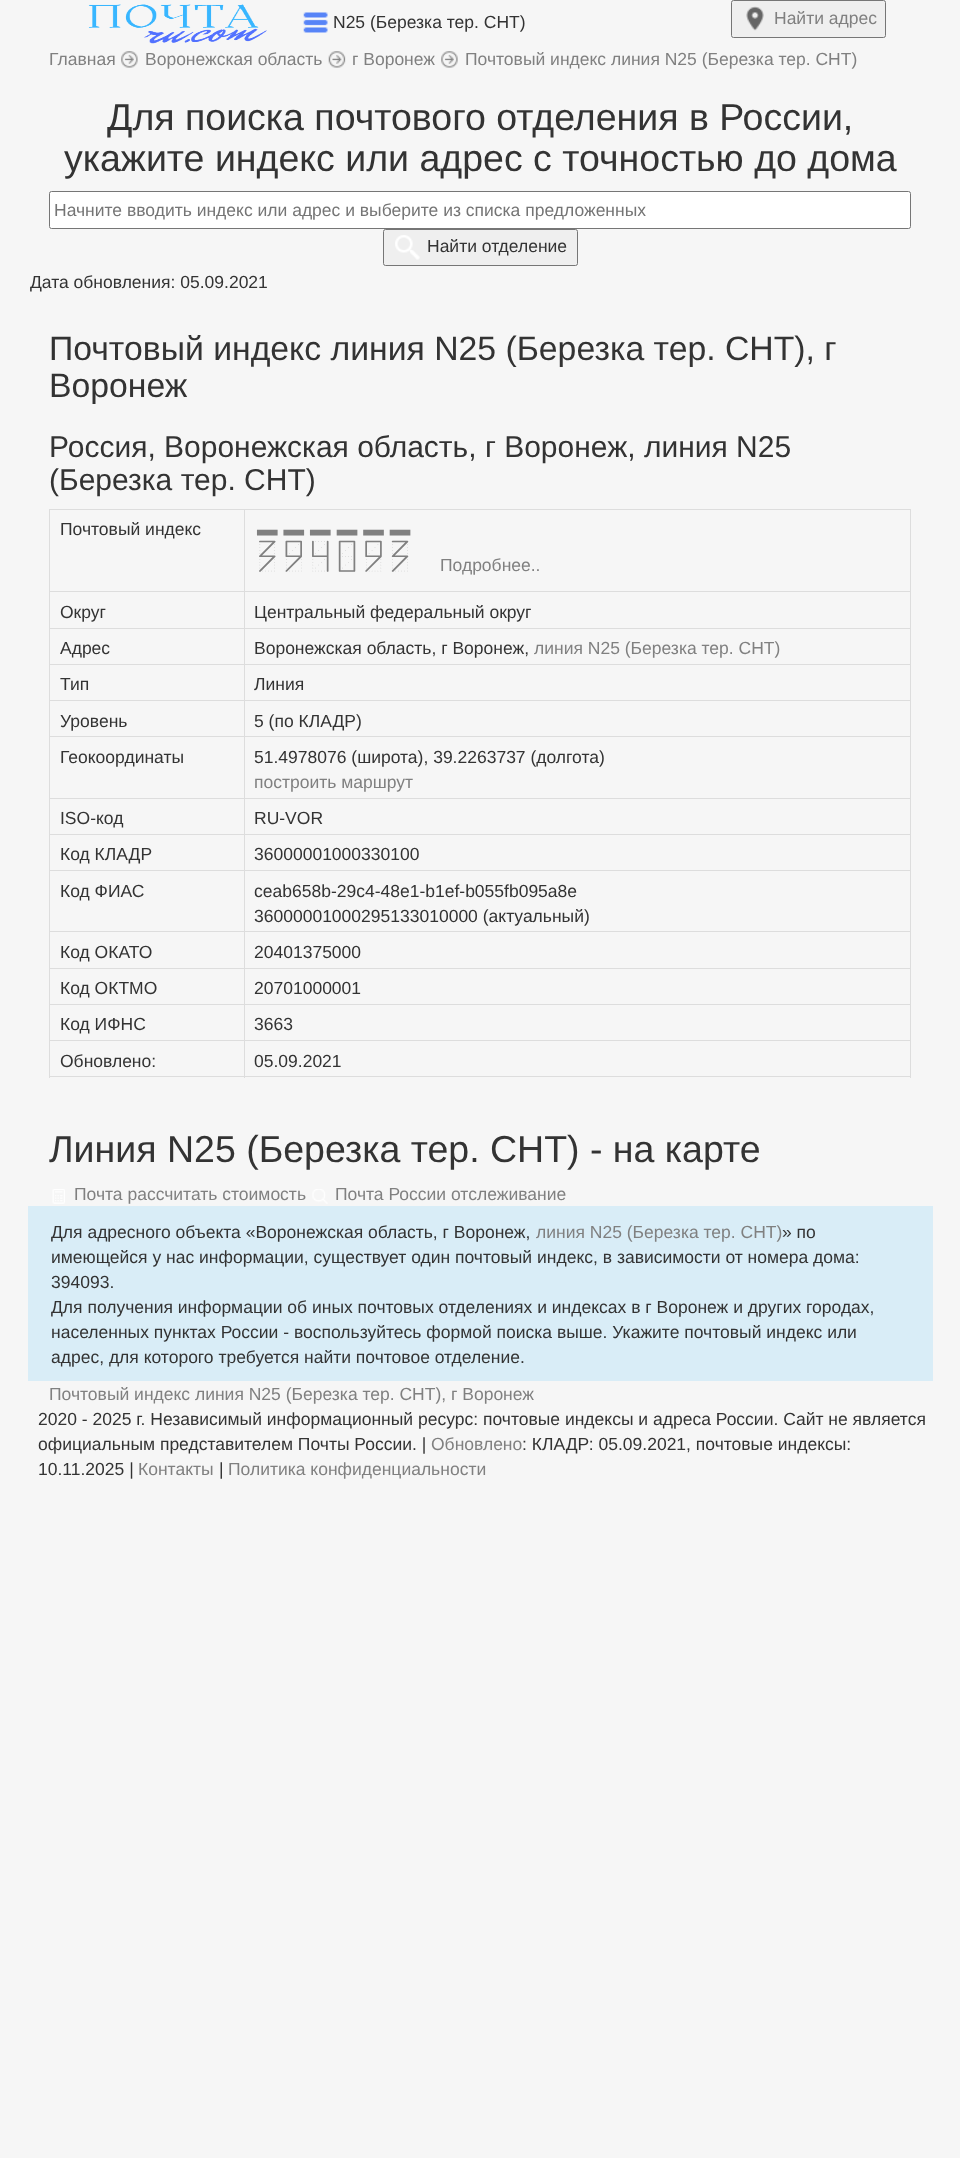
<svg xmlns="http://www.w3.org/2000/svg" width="960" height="2158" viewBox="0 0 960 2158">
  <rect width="100%" height="100%" fill="#f6f6f6"/>
  <image x="88" y="4" width="179" height="40" href="img1.png"/>
  <image x="303" y="12" width="25" height="21" href="img2.png"/>
  <text x="333" y="28" font-family="Liberation Sans" font-size="17.5" fill="#333333">N25 (Березка тер. СНТ)</text>
  <rect x="731.5" y="0.5" width="154" height="37" rx="2" fill="#efefef" stroke="#767676"/>
  <image x="746" y="6" width="18" height="25" href="img3.png"/>
  <text x="774" y="24" font-family="Liberation Sans" font-size="17.5" fill="#808080">Найти адрес</text>
  <text x="49" y="65" font-family="Liberation Sans" font-size="17.5" fill="#808080">Главная</text>
  <image x="121" y="51" width="17" height="17" href="img4.png"/>
  <text x="145" y="65" font-family="Liberation Sans" font-size="17.5" fill="#808080">Воронежская область</text>
  <image x="328" y="51" width="18" height="17" href="img5.png"/>
  <text x="352" y="65" font-family="Liberation Sans" font-size="17.5" fill="#808080">г Воронеж</text>
  <image x="441" y="51" width="17" height="17" href="img6.png"/>
  <text x="465" y="65" font-family="Liberation Sans" font-size="17.5" fill="#808080">Почтовый индекс линия N25 (Березка тер. СНТ)</text>
  <text x="107" y="130" font-family="Liberation Sans" font-size="37.5" fill="#333333">Для поиска почтового отделения в России,</text>
  <text x="64" y="171" font-family="Liberation Sans" font-size="37.5" fill="#333333">укажите индекс или адрес с точностью до дома</text>
  <rect x="49.5" y="191.5" width="861" height="37" rx="2" fill="#ffffff" stroke="#767676"/>
  <text x="54" y="216" font-family="Liberation Sans" font-size="17.5" fill="#757575">Начните вводить индекс или адрес и выберите из списка предложенных</text>
  <rect x="383.5" y="229.5" width="194" height="36" rx="2" fill="#efefef" stroke="#767676"/>
  <image x="395" y="235" width="25" height="25" href="img7.png"/>
  <text x="427" y="252" font-family="Liberation Sans" font-size="17.5" fill="#333333">Найти отделение</text>
  <text x="30" y="288" font-family="Liberation Sans" font-size="17.5" fill="#333333">Дата обновления: 05.09.2021</text>
  <text x="49" y="360" font-family="Liberation Sans" font-size="33.75" fill="#333333">Почтовый индекс линия N25 (Березка тер. СНТ), г</text>
  <text x="49" y="397" font-family="Liberation Sans" font-size="33.75" fill="#333333">Воронеж</text>
  <text x="49" y="457" font-family="Liberation Sans" font-size="30" fill="#333333">Россия, Воронежская область, г Воронеж, линия N25</text>
  <text x="49" y="490" font-family="Liberation Sans" font-size="30" fill="#333333">(Березка тер. СНТ)</text>
  <rect x="49" y="509" width="862" height="1" fill="#dddddd"/>
  <rect x="910" y="509" width="1" height="569" fill="#dddddd"/>
  <rect x="49" y="1076" width="862" height="1" fill="#dddddd"/>
  <rect x="49" y="509" width="1" height="569" fill="#dddddd"/>
  <text x="60" y="535" font-family="Liberation Sans" font-size="17.5" fill="#333333">Почтовый индекс</text>
  <rect x="244" y="591" width="667" height="1" fill="#dddddd"/>
  <rect x="244" y="628" width="667" height="1" fill="#dddddd"/>
  <rect x="244" y="664" width="667" height="1" fill="#dddddd"/>
  <rect x="244" y="700" width="667" height="1" fill="#dddddd"/>
  <rect x="244" y="736" width="667" height="1" fill="#dddddd"/>
  <rect x="244" y="798" width="667" height="1" fill="#dddddd"/>
  <rect x="244" y="834" width="667" height="1" fill="#dddddd"/>
  <rect x="244" y="870" width="667" height="1" fill="#dddddd"/>
  <rect x="244" y="931" width="667" height="1" fill="#dddddd"/>
  <rect x="244" y="968" width="667" height="1" fill="#dddddd"/>
  <rect x="244" y="1004" width="667" height="1" fill="#dddddd"/>
  <rect x="244" y="1040" width="667" height="1" fill="#dddddd"/>
  <rect x="244" y="1040" width="1" height="38" fill="#dddddd"/>
  <rect x="49" y="1040" width="196" height="1" fill="#dddddd"/>
  <rect x="244" y="1004" width="1" height="37" fill="#dddddd"/>
  <rect x="49" y="1004" width="196" height="1" fill="#dddddd"/>
  <rect x="244" y="968" width="1" height="37" fill="#dddddd"/>
  <rect x="49" y="968" width="196" height="1" fill="#dddddd"/>
  <rect x="244" y="931" width="1" height="38" fill="#dddddd"/>
  <rect x="49" y="931" width="196" height="1" fill="#dddddd"/>
  <rect x="244" y="870" width="1" height="63" fill="#dddddd"/>
  <rect x="49" y="870" width="196" height="1" fill="#dddddd"/>
  <rect x="244" y="834" width="1" height="37" fill="#dddddd"/>
  <rect x="49" y="834" width="196" height="1" fill="#dddddd"/>
  <rect x="244" y="798" width="1" height="37" fill="#dddddd"/>
  <rect x="49" y="798" width="196" height="1" fill="#dddddd"/>
  <rect x="244" y="736" width="1" height="63" fill="#dddddd"/>
  <rect x="49" y="736" width="196" height="1" fill="#dddddd"/>
  <rect x="244" y="700" width="1" height="38" fill="#dddddd"/>
  <rect x="49" y="700" width="196" height="1" fill="#dddddd"/>
  <rect x="244" y="664" width="1" height="37" fill="#dddddd"/>
  <rect x="49" y="664" width="196" height="1" fill="#dddddd"/>
  <rect x="244" y="628" width="1" height="37" fill="#dddddd"/>
  <rect x="49" y="628" width="196" height="1" fill="#dddddd"/>
  <rect x="244" y="591" width="1" height="38" fill="#dddddd"/>
  <rect x="49" y="591" width="196" height="1" fill="#dddddd"/>
  <rect x="244" y="509" width="1" height="84" fill="#dddddd"/>
  <text x="254" y="571" font-family="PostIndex" font-size="50" fill="#808080">394093</text>
  <text x="440" y="571" font-family="Liberation Sans" font-size="17.5" fill="#808080">Подробнее..</text>
  <text x="60" y="618" font-family="Liberation Sans" font-size="17.5" fill="#333333">Округ</text>
  <text x="254" y="618" font-family="Liberation Sans" font-size="17.5" fill="#333333">Центральный федеральный округ</text>
  <text x="60" y="654" font-family="Liberation Sans" font-size="17.5" fill="#333333">Адрес</text>
  <text x="254" y="654" font-family="Liberation Sans" font-size="17.5" fill="#333333">Воронежская область, г Воронеж,</text>
  <text x="534" y="654" font-family="Liberation Sans" font-size="17.5" fill="#808080">линия N25 (Березка тер. СНТ)</text>
  <text x="60" y="690" font-family="Liberation Sans" font-size="17.5" fill="#333333">Тип</text>
  <text x="254" y="690" font-family="Liberation Sans" font-size="17.5" fill="#333333">Линия</text>
  <text x="60" y="727" font-family="Liberation Sans" font-size="17.5" fill="#333333">Уровень</text>
  <text x="254" y="727" font-family="Liberation Sans" font-size="17.5" fill="#333333">5 (по КЛАДР)</text>
  <text x="60" y="763" font-family="Liberation Sans" font-size="17.5" fill="#333333">Геокоординаты</text>
  <text x="254" y="763" font-family="Liberation Sans" font-size="17.5" fill="#333333">51.4978076 (широта), 39.2263737 (долгота)</text>
  <text x="254" y="788" font-family="Liberation Sans" font-size="17.5" fill="#808080">построить маршрут</text>
  <text x="60" y="824" font-family="Liberation Sans" font-size="17.5" fill="#333333">ISO-код</text>
  <text x="254" y="824" font-family="Liberation Sans" font-size="17.5" fill="#333333">RU-VOR</text>
  <text x="60" y="860" font-family="Liberation Sans" font-size="17.5" fill="#333333">Код КЛАДР</text>
  <text x="254" y="860" font-family="Liberation Sans" font-size="17.5" fill="#333333">36000001000330100</text>
  <text x="60" y="897" font-family="Liberation Sans" font-size="17.5" fill="#333333">Код ФИАС</text>
  <text x="254" y="897" font-family="Liberation Sans" font-size="17.5" fill="#333333">ceab658b-29c4-48e1-b1ef-b055fb095a8e</text>
  <text x="254" y="922" font-family="Liberation Sans" font-size="17.5" fill="#333333">36000001000295133010000 (актуальный)</text>
  <text x="60" y="958" font-family="Liberation Sans" font-size="17.5" fill="#333333">Код ОКАТО</text>
  <text x="254" y="958" font-family="Liberation Sans" font-size="17.5" fill="#333333">20401375000</text>
  <text x="60" y="994" font-family="Liberation Sans" font-size="17.5" fill="#333333">Код ОКТМО</text>
  <text x="254" y="994" font-family="Liberation Sans" font-size="17.5" fill="#333333">20701000001</text>
  <text x="60" y="1030" font-family="Liberation Sans" font-size="17.5" fill="#333333">Код ИФНС</text>
  <text x="254" y="1030" font-family="Liberation Sans" font-size="17.5" fill="#333333">3663</text>
  <text x="60" y="1067" font-family="Liberation Sans" font-size="17.5" fill="#333333">Обновлено:</text>
  <text x="254" y="1067" font-family="Liberation Sans" font-size="17.5" fill="#333333">05.09.2021</text>
  <text x="49" y="1162" font-family="Liberation Sans" font-size="37.5" fill="#333333">Линия N25 (Березка тер. СНТ) - на карте</text>
  <image x="52" y="1189" width="13" height="15" href="img8.png"/>
  <text x="74" y="1200" font-family="Liberation Sans" font-size="17.5" fill="#808080">Почта рассчитать стоимость</text>
  <image x="312" y="1189" width="16" height="15" href="img9.png"/>
  <text x="335" y="1200" font-family="Liberation Sans" font-size="17.5" fill="#808080">Почта России отслеживание</text>
  <rect x="28" y="1206" width="905" height="175" fill="#d9edf7"/>
  <text x="51" y="1238" font-family="Liberation Sans" font-size="17.5" fill="#333333">Для адресного объекта «Воронежская область, г Воронеж,</text>
  <text x="536" y="1238" font-family="Liberation Sans" font-size="17.5" fill="#808080">линия N25 (Березка тер. СНТ)</text>
  <text x="782" y="1238" font-family="Liberation Sans" font-size="17.5" fill="#333333">» по</text>
  <text x="51" y="1263" font-family="Liberation Sans" font-size="17.5" fill="#333333">имеющейся у нас информации, существует один почтовый индекс, в зависимости от номера дома:</text>
  <text x="51" y="1288" font-family="Liberation Sans" font-size="17.5" fill="#333333">394093.</text>
  <text x="51" y="1313" font-family="Liberation Sans" font-size="17.5" fill="#333333">Для получения информации об иных почтовых отделениях и индексах в г Воронеж и других городах,</text>
  <text x="51" y="1338" font-family="Liberation Sans" font-size="17.5" fill="#333333">населенных пунктах России - воспользуйтесь формой поиска выше. Укажите почтовый индекс или</text>
  <text x="51" y="1363" font-family="Liberation Sans" font-size="17.5" fill="#333333">адрес, для которого требуется найти почтовое отделение.</text>
  <text x="49" y="1400" font-family="Liberation Sans" font-size="17.5" fill="#808080">Почтовый индекс линия N25 (Березка тер. СНТ), г Воронеж</text>
  <text x="38" y="1425" font-family="Liberation Sans" font-size="17.5" fill="#333333">2020 - 2025 г. Независимый информационный ресурс: почтовые индексы и адреса России. Сайт не является</text>
  <text x="38" y="1450" font-family="Liberation Sans" font-size="17.5" fill="#333333">официальным представителем Почты России. |</text>
  <text x="431" y="1450" font-family="Liberation Sans" font-size="17.5" fill="#808080">Обновлено</text>
  <text x="522" y="1450" font-family="Liberation Sans" font-size="17.5" fill="#333333">: КЛАДР: 05.09.2021, почтовые индексы:</text>
  <text x="38" y="1475" font-family="Liberation Sans" font-size="17.5" fill="#333333">10.11.2025 |</text>
  <text x="138" y="1475" font-family="Liberation Sans" font-size="17.5" fill="#808080">Контакты</text>
  <text x="219" y="1475" font-family="Liberation Sans" font-size="17.5" fill="#333333">|</text>
  <text x="228" y="1475" font-family="Liberation Sans" font-size="17.5" fill="#808080">Политика конфиденциальности</text>
</svg>
